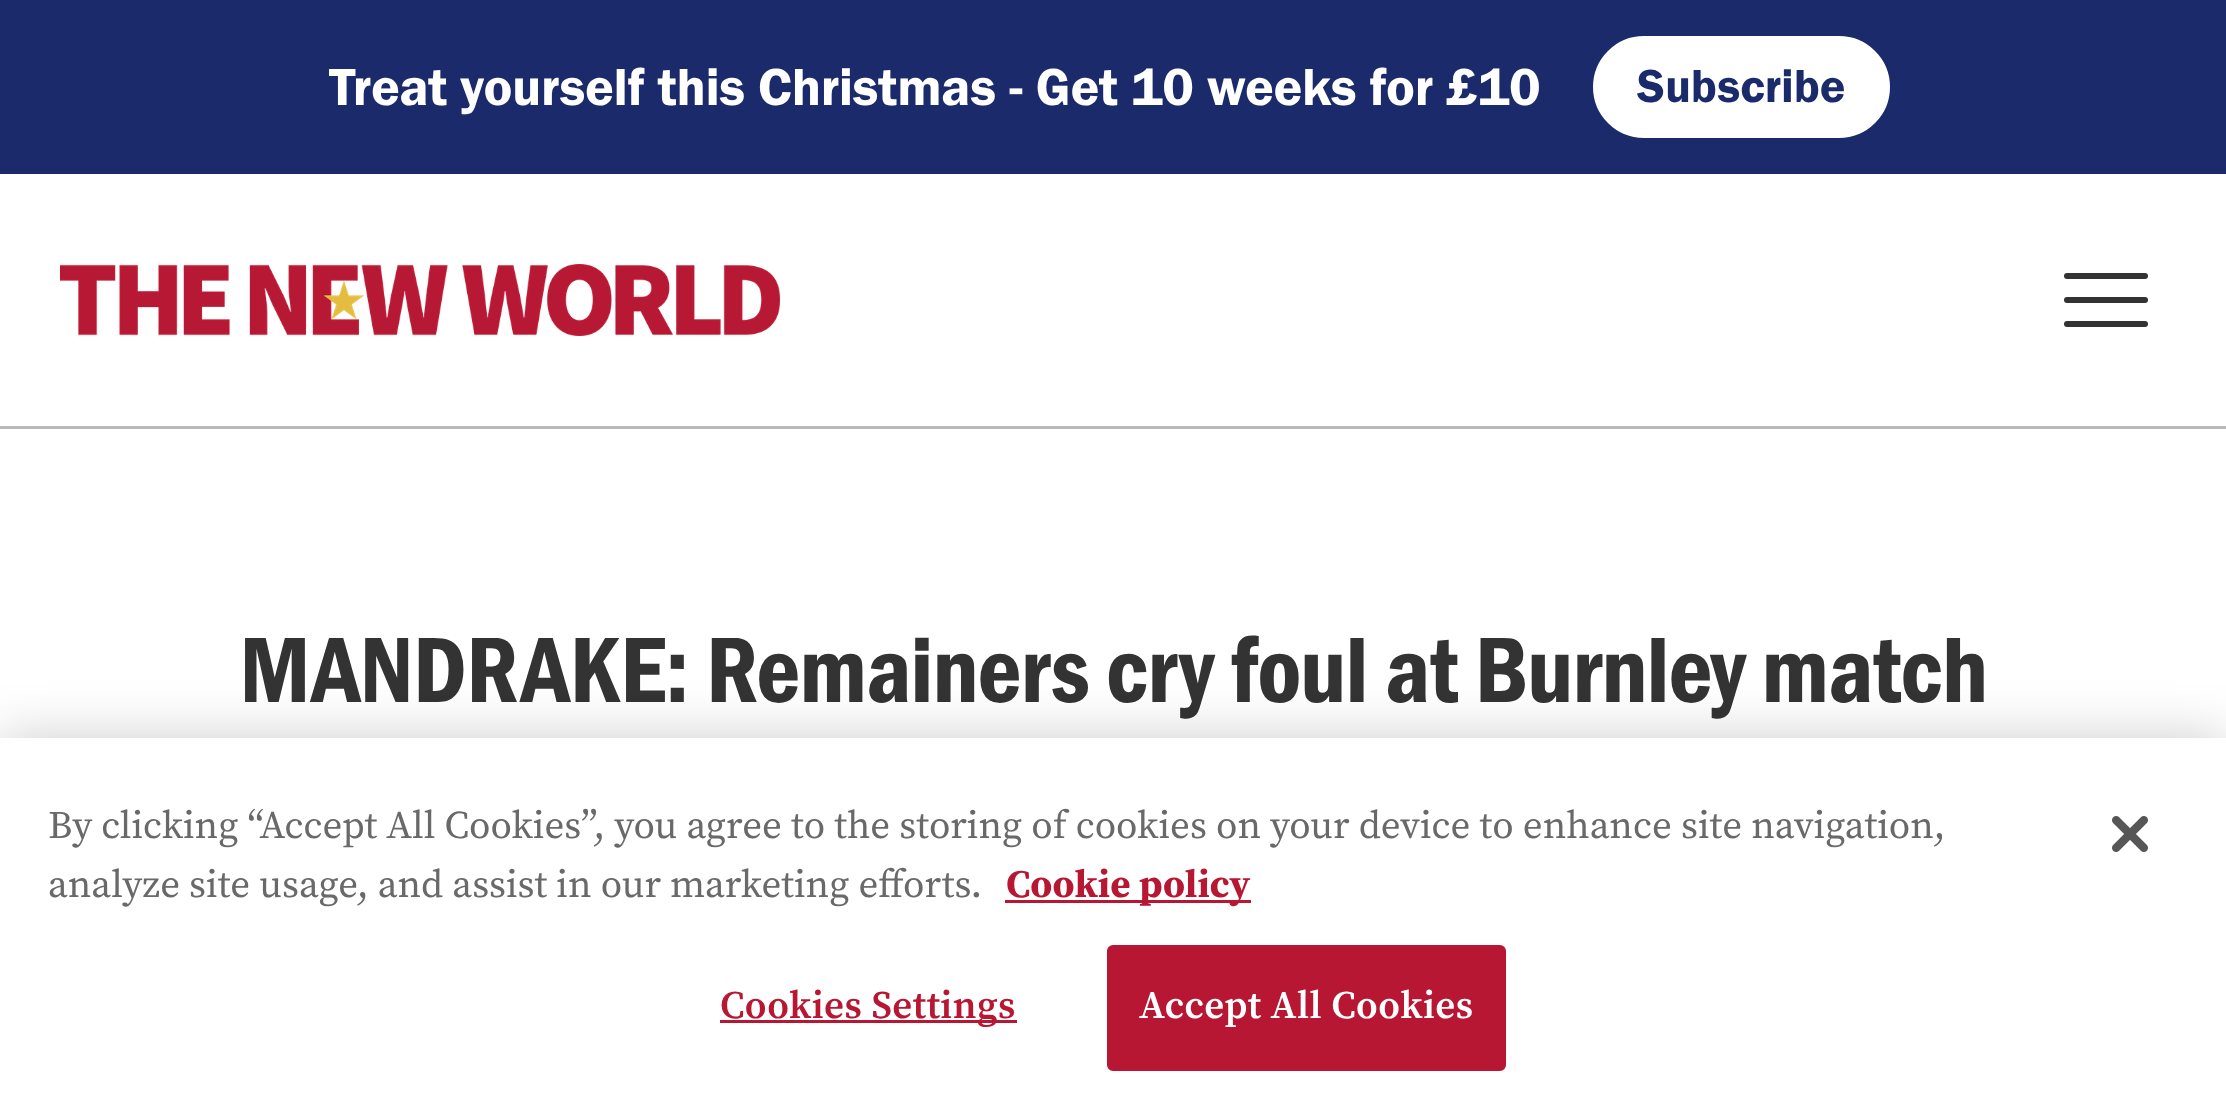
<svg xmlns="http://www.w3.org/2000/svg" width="2226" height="1117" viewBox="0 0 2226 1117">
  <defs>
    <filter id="blur1" x="-50%" y="-200%" width="200%" height="500%"><feGaussianBlur stdDeviation="27"/></filter>
  </defs>
  <rect width="100%" height="100%" fill="#ffffff"/>
  <rect x="0" y="0" width="2226" height="174" fill="#1b2a6b"/>
  <text x="329" y="105" font-family="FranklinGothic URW" font-size="54" font-weight="600" letter-spacing="-0.3" fill="#ffffff">Treat yourself this Christmas - Get 10 weeks for £10</text>
  <rect x="1590" y="33" width="303" height="108" rx="54" fill="#ffffff" stroke="#1b2a6b" stroke-width="6"/>
  <text x="1637" y="102" font-family="FranklinGothic URW" font-size="48" font-weight="600" fill="#1b2a6b">Subscribe</text>
  <rect x="0" y="426" width="2226" height="3" fill="#bab9b9"/>
  <image x="60" y="264" width="720" height="72" href="img1.png"/>
  <rect x="2064" y="273" width="84" height="6" rx="3" fill="#333333"/>
  <rect x="2064" y="297" width="84" height="6" rx="3" fill="#333333"/>
  <rect x="2064" y="321" width="84" height="6" rx="3" fill="#333333"/>
  <text x="239" y="702" font-family="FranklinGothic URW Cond" font-size="96" font-weight="600" letter-spacing="-0.9" fill="#333333">MANDRAKE: Remainers cry foul at Burnley match</text>
  <rect x="0" y="738" width="2226" height="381" fill="#000000" fill-opacity="0.2" filter="url(#blur1)"/>
  <rect x="0" y="738" width="2226" height="379" fill="#ffffff"/>
  <text x="48" y="838" font-family="Source Serif Pro" font-size="39" fill="#696969">By clicking “Accept All Cookies”, you agree to the storing of cookies on your device to enhance site navigation,</text>
  <text x="48" y="897" font-family="Source Serif Pro" font-size="39" fill="#696969">analyze site usage, and assist in our marketing efforts.</text>
  <rect x="1005" y="900" width="246" height="3" fill="#b71733"/>
  <text x="1006" y="897" font-family="Source Serif Pro" font-size="39" font-weight="bold" fill="#b71733">Cookie policy</text>
  <rect x="720" y="1020" width="297" height="3" fill="#b71733"/>
  <text x="720" y="1018" font-family="Source Serif Pro" font-size="39" font-weight="600" letter-spacing="0.4" fill="#b71733">Cookies Settings</text>
  <rect x="1108.5" y="946.5" width="396" height="123" rx="4.5" fill="#b71733" stroke="#b71733" stroke-width="3"/>
  <text x="1139" y="1018" font-family="Source Serif Pro" font-size="39" font-weight="600" letter-spacing="0.4" fill="#ffffff">Accept All Cookies</text>
  <image x="2112" y="816" width="36" height="36" href="img2.png"/>
</svg>
